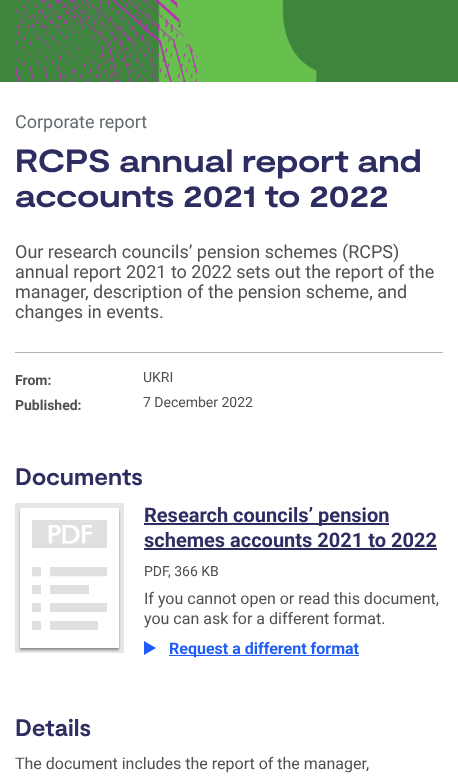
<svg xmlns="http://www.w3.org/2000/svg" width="458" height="782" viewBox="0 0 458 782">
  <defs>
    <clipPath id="clip1"><path d="M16 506H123V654H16ZM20 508H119V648H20Z" clip-rule="evenodd"/></clipPath>
    <filter id="blur1" x="-50%" y="-200%" width="200%" height="500%"><feGaussianBlur stdDeviation="1"/></filter>
  </defs>
  <rect width="100%" height="100%" fill="#ffffff"/>
  <rect x="0" y="0" width="458" height="82" fill="#3e863e"/>
  <image x="15" y="0" width="302" height="82" href="img1.png"/>
  <text x="15" y="128" font-family="Roboto" font-size="18" fill="#626a6e">Corporate report</text>
  <text x="15" y="172" font-family="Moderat" font-size="32" font-weight="bold" fill="#2e2d62">RCPS annual report and</text>
  <text x="15" y="207" font-family="Moderat" font-size="32" font-weight="bold" fill="#2e2d62">accounts 2021 to 2022</text>
  <text x="15" y="258" font-family="Roboto" font-size="18" fill="#505050">Our research councils’ pension schemes (RCPS)</text>
  <text x="15" y="278" font-family="Roboto" font-size="18" fill="#505050">annual report 2021 to 2022 sets out the report of the</text>
  <text x="15" y="298" font-family="Roboto" font-size="18" fill="#505050">manager, description of the pension scheme, and</text>
  <text x="15" y="318" font-family="Roboto" font-size="18" fill="#505050">changes in events.</text>
  <rect x="15" y="352" width="428" height="1" fill="#b1b4b6"/>
  <text x="15" y="385" font-family="Roboto" font-size="14" font-weight="bold" fill="#505050">From:</text>
  <text x="143" y="382" font-family="Roboto" font-size="14" fill="#505050">UKRI</text>
  <text x="15" y="410" font-family="Roboto" font-size="14" font-weight="bold" fill="#505050">Published:</text>
  <text x="143" y="407" font-family="Roboto" font-size="14" fill="#505050">7 December 2022</text>
  <text x="15" y="485" font-family="'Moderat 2'" font-size="24" font-weight="bold" fill="#2e2d62">Documents</text>
  <g clip-path="url(#clip1)">
    <rect x="20" y="510" width="99" height="140" fill="#0b0c0c" fill-opacity="0.4" filter="url(#blur1)"/>
  </g>
  <image x="32" y="520" width="75" height="110" href="img2.png"/>
  <rect x="17.5" y="505.5" width="104" height="145" fill="none" stroke="#0b0c0c" stroke-opacity="0.1" stroke-width="5"/>
  <rect x="144" y="523" width="245" height="2" fill="#2e2d62"/>
  <text x="144" y="522" font-family="Roboto" font-size="20" font-weight="bold" fill="#2e2d62">Research councils’ pension</text>
  <text x="144" y="547" font-family="Roboto" font-size="20" font-weight="bold" fill="#2e2d62">schemes accounts 2021 to 2022</text>
  <rect x="144" y="548" width="293" height="2" fill="#2e2d62"/>
  <text x="144" y="576" font-family="Roboto" font-size="14" fill="#505050">PDF</text>
  <text x="168" y="576" font-family="Roboto" font-size="14" fill="#505050">, 366 KB</text>
  <text x="144" y="604" font-family="Roboto" font-size="16" fill="#505050">If you cannot open or read this document,</text>
  <text x="144" y="624" font-family="Roboto" font-size="16" fill="#505050">you can ask for a different format.</text>
  <path d="M144 655L156 648L144 641Z" fill="#1e5df8"/>
  <rect x="169" y="655" width="190" height="1" fill="#1e5df8"/>
  <text x="169" y="654" font-family="Roboto" font-size="16" font-weight="bold" fill="#1e5df8">Request a different format</text>
  <text x="15" y="736" font-family="'Moderat 2'" font-size="24" font-weight="bold" fill="#2e2d62">Details</text>
  <text x="15" y="769" font-family="Roboto" font-size="16" fill="#505050">The document includes the report of the manager,</text>
</svg>
